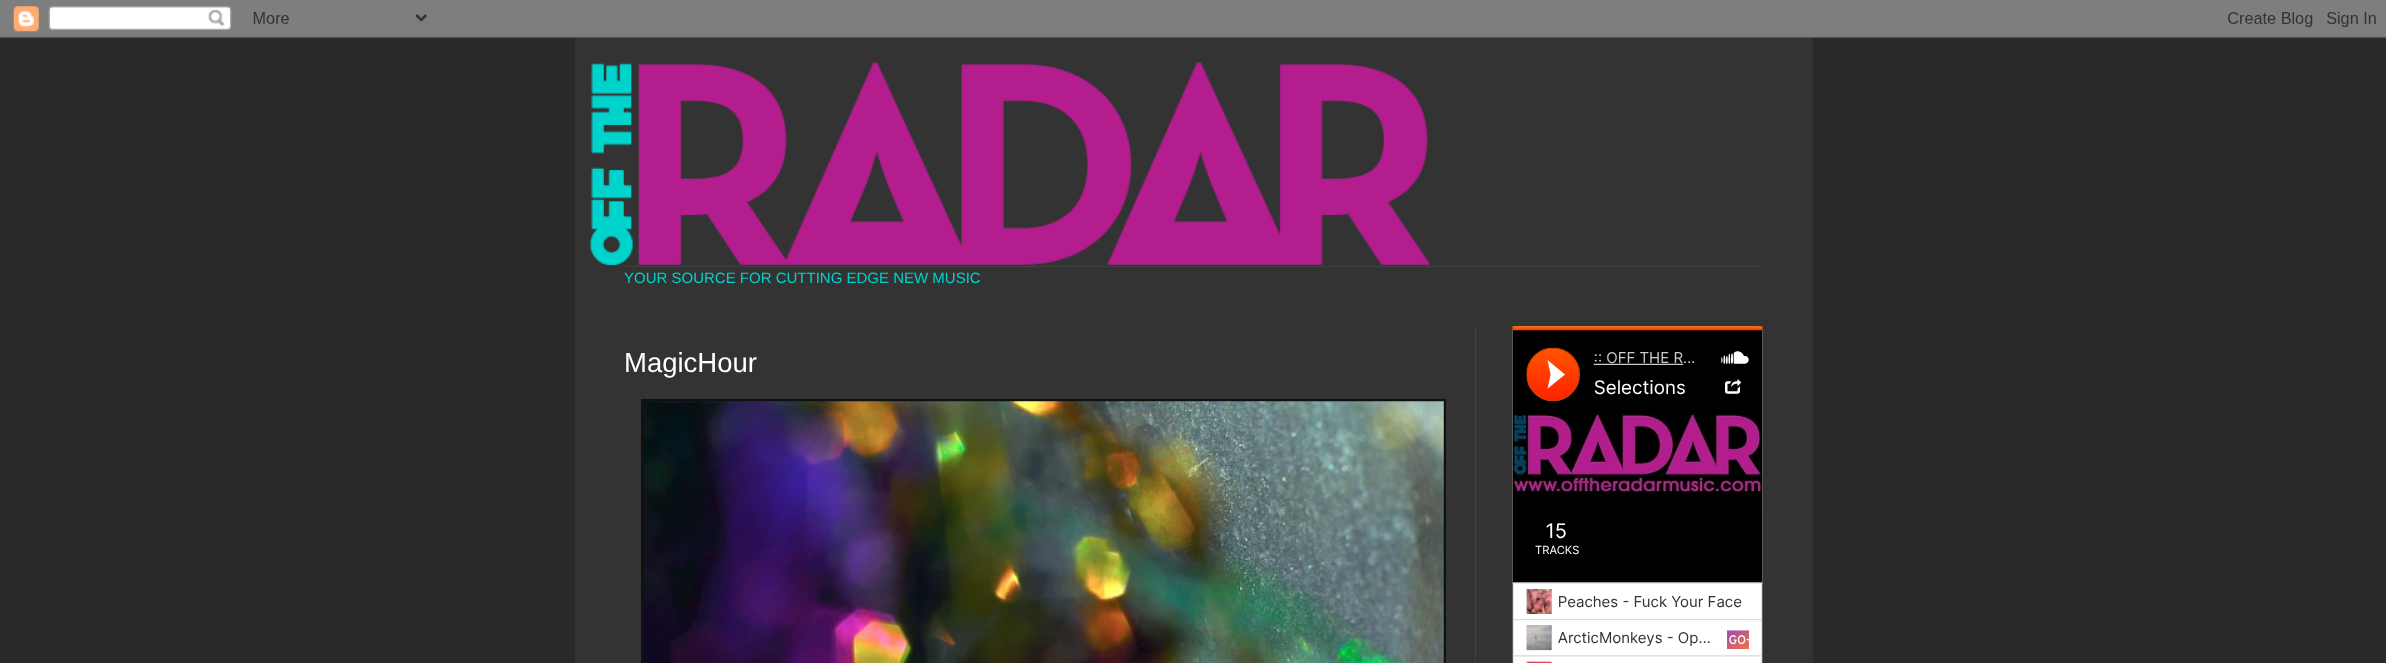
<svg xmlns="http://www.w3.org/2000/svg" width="2386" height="663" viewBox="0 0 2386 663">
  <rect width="100%" height="100%" fill="#292929"/>
  <image x="0" y="0" width="2386" height="38" href="img1.png"/>
  <rect x="575" y="38" width="1238" height="625" fill="#333333"/>
  <image x="589" y="62" width="842" height="204" href="img2.png"/>
  <rect x="625" y="266" width="1138" height="1" fill="#404040"/>
  <text x="624" y="283" font-family="Liberation Sans" font-size="15" fill="#00d3cc">YOUR SOURCE FOR CUTTING EDGE NEW MUSIC</text>
  <text x="624" y="372" font-family="Liberation Sans" font-size="27.5" fill="#ffffff">MagicHour</text>
  <rect x="641" y="399" width="805" height="264" fill="#111111"/>
  <image x="643" y="401" width="801" height="262" href="img3.png"/>
  <image x="1512" y="326" width="251" height="337" href="img4.png"/>
  <rect x="1475" y="326" width="1" height="337" fill="#404040"/>
</svg>
